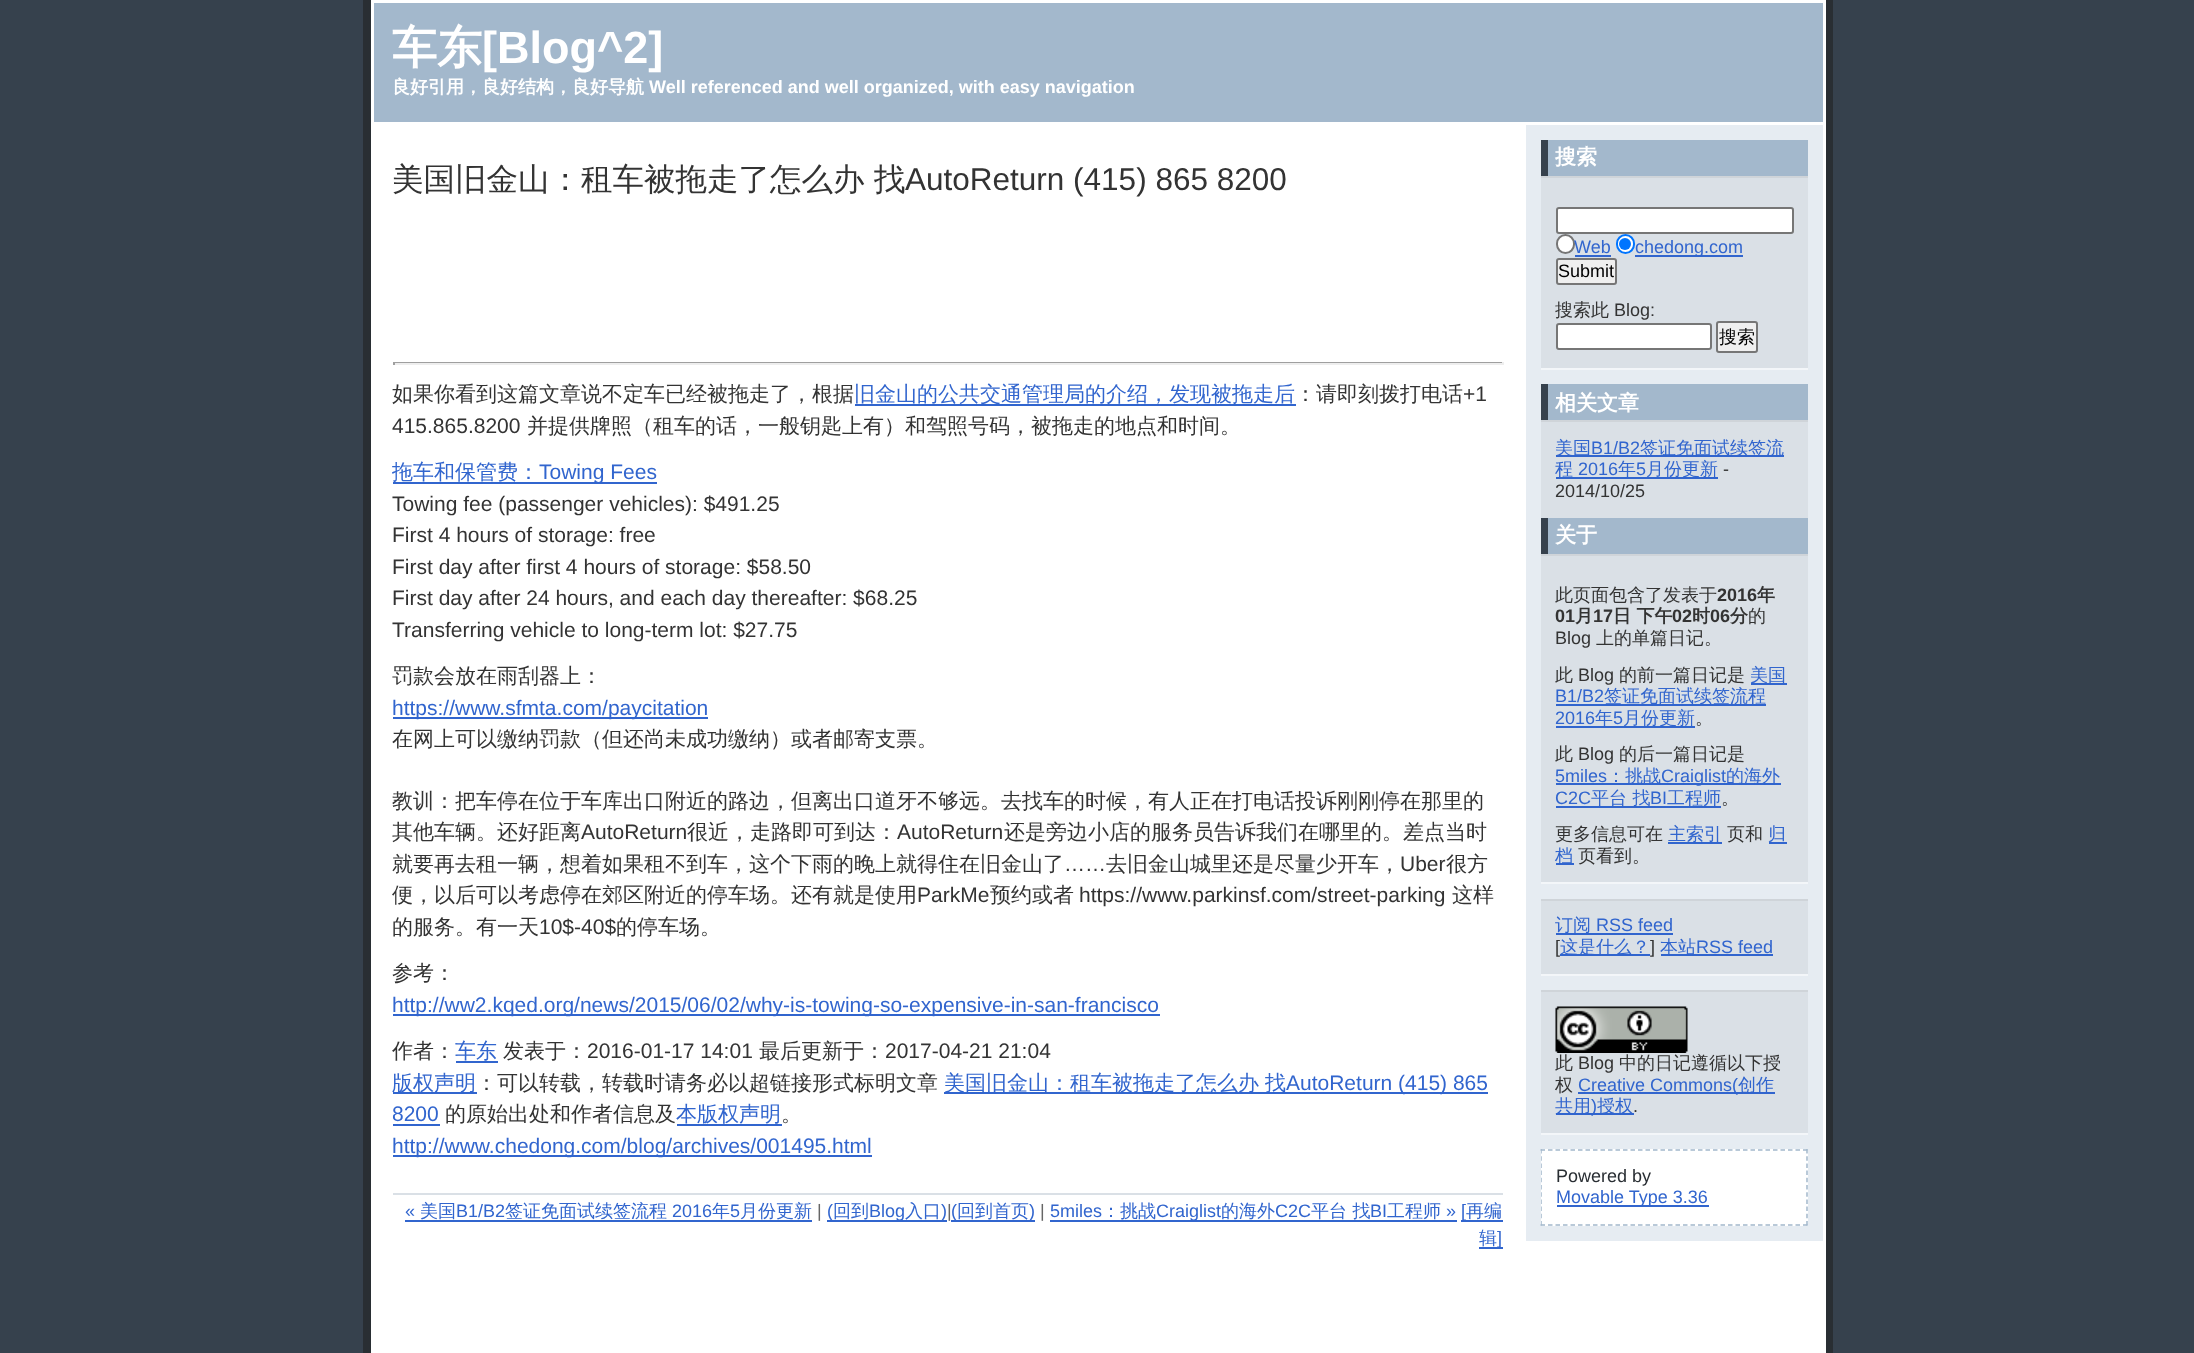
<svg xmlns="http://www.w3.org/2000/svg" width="2194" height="1353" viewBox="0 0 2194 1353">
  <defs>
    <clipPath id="clip1"><rect x="1541" y="1149" width="267" height="77"/></clipPath>
  </defs>
  <rect width="100%" height="100%" fill="#36414d"/>
  <rect x="371" y="122" width="1455" height="1231" fill="#ffffff"/>
  <rect x="1826" y="0" width="7" height="1353" fill="#292e33"/>
  <rect x="363" y="0" width="8" height="1353" fill="#292e33"/>
  <rect x="374" y="3" width="1449" height="119" fill="#a3b8cc"/>
  <rect x="371" y="0" width="1455" height="3" fill="#ffffff"/>
  <rect x="1823" y="0" width="3" height="122" fill="#ffffff"/>
  <rect x="371" y="0" width="3" height="122" fill="#ffffff"/>
  <text x="392" y="63" font-family="WenQuanYi Zen Hei" font-size="45" font-weight="bold" fill="#ffffff">车东</text>
  <text x="482" y="63" font-family="Liberation Sans" font-size="45" font-weight="bold" fill="#ffffff">[Blog^2]</text>
  <text x="392" y="93" font-family="WenQuanYi Zen Hei" font-size="18" font-weight="bold" fill="#ffffff">良好引用，良好结构，良好导航</text>
  <text x="649" y="93" font-family="Liberation Sans" font-size="18" font-weight="bold" fill="#ffffff">Well referenced and well organized, with easy navigation</text>
  <text x="392" y="190" font-family="WenQuanYi Zen Hei" font-size="31.5" font-weight="500" fill="#333333">美国旧金山：租车被拖走了怎么办</text>
  <text x="874" y="190" font-family="WenQuanYi Zen Hei" font-size="31.5" font-weight="500" fill="#333333">找</text>
  <text x="905" y="190" font-family="Liberation Sans" font-size="31.5" fill="#333333">AutoReturn (415) 865 8200</text>
  <rect x="393" y="362" width="1110" height="1" fill="#9f9f9f"/>
  <rect x="1502" y="362" width="2" height="3" fill="#eeeeee"/>
  <rect x="393" y="363" width="1110" height="2" fill="#eeeeee"/>
  <rect x="393" y="362" width="2" height="3" fill="#9f9f9f"/>
  <text x="392" y="401" font-family="WenQuanYi Zen Hei" font-size="21" font-weight="500" fill="#333333">如果你看到这篇文章说不定车已经被拖走了，根据</text>
  <rect x="855" y="404" width="441" height="2" fill="#3165ce"/>
  <text x="854" y="401" font-family="WenQuanYi Zen Hei" font-size="21" font-weight="500" fill="#3165ce">旧金山的公共交通管理局的介绍，发现被拖走后</text>
  <text x="1295" y="401" font-family="WenQuanYi Zen Hei" font-size="21" font-weight="500" fill="#333333">：请即刻拨打电话</text>
  <text x="1463" y="401" font-family="Liberation Sans" font-size="21" fill="#333333">+1</text>
  <text x="392" y="433" font-family="Liberation Sans" font-size="21" fill="#333333">415.865.8200</text>
  <text x="527" y="433" font-family="WenQuanYi Zen Hei" font-size="21" font-weight="500" fill="#333333">并提供牌照（租车的话，一般钥匙上有）和驾照号码，被拖走的地点和时间。</text>
  <text x="392" y="479" font-family="WenQuanYi Zen Hei" font-size="21" font-weight="500" fill="#3165ce">拖车和保管费：</text>
  <rect x="393" y="482" width="264" height="2" fill="#3165ce"/>
  <text x="539" y="479" font-family="Liberation Sans" font-size="21" fill="#3165ce">Towing Fees</text>
  <text x="392" y="511" font-family="Liberation Sans" font-size="21" fill="#333333">Towing fee (passenger vehicles): $491.25</text>
  <text x="392" y="542" font-family="Liberation Sans" font-size="21" fill="#333333">First 4 hours of storage: free</text>
  <text x="392" y="574" font-family="Liberation Sans" font-size="21" fill="#333333">First day after first 4 hours of storage: $58.50</text>
  <text x="392" y="605" font-family="Liberation Sans" font-size="21" fill="#333333">First day after 24 hours, and each day thereafter: $68.25</text>
  <text x="392" y="637" font-family="Liberation Sans" font-size="21" fill="#333333">Transferring vehicle to long-term lot: $27.75</text>
  <text x="392" y="683" font-family="WenQuanYi Zen Hei" font-size="21" font-weight="500" fill="#333333">罚款会放在雨刮器上：</text>
  <rect x="393" y="717" width="315" height="2" fill="#3165ce"/>
  <text x="392" y="715" font-family="Liberation Sans" font-size="21" fill="#3165ce">https://www.sfmta.com/paycitation</text>
  <text x="392" y="746" font-family="WenQuanYi Zen Hei" font-size="21" font-weight="500" fill="#333333">在网上可以缴纳罚款（但还尚未成功缴纳）或者邮寄支票。</text>
  <text x="392" y="808" font-family="WenQuanYi Zen Hei" font-size="21" font-weight="500" fill="#333333">教训：把车停在位于车库出口附近的路边，但离出口道牙不够远。去找车的时候，有人正在打电话投诉刚刚停在那里的</text>
  <text x="392" y="839" font-family="WenQuanYi Zen Hei" font-size="21" font-weight="500" fill="#333333">其他车辆。还好距离</text>
  <text x="581" y="839" font-family="Liberation Sans" font-size="21" fill="#333333">AutoReturn</text>
  <text x="687" y="839" font-family="WenQuanYi Zen Hei" font-size="21" font-weight="500" fill="#333333">很近，走路即可到达：</text>
  <text x="897" y="839" font-family="Liberation Sans" font-size="21" fill="#333333">AutoReturn</text>
  <text x="1004" y="839" font-family="WenQuanYi Zen Hei" font-size="21" font-weight="500" fill="#333333">还是旁边小店的服务员告诉我们在哪里的。差点当时</text>
  <text x="392" y="871" font-family="WenQuanYi Zen Hei" font-size="21" font-weight="500" fill="#333333">就要再去租一辆，想着如果租不到车，这个下雨的晚上就得住在旧金山了</text>
  <text x="1064" y="871" font-family="Liberation Sans" font-size="21" fill="#333333">……</text>
  <text x="1106" y="871" font-family="WenQuanYi Zen Hei" font-size="21" font-weight="500" fill="#333333">去旧金山城里还是尽量少开车，</text>
  <text x="1400" y="871" font-family="Liberation Sans" font-size="21" fill="#333333">Uber</text>
  <text x="1446" y="871" font-family="WenQuanYi Zen Hei" font-size="21" font-weight="500" fill="#333333">很方</text>
  <text x="392" y="902" font-family="WenQuanYi Zen Hei" font-size="21" font-weight="500" fill="#333333">便，以后可以考虑停在郊区附近的停车场。还有就是使用</text>
  <text x="917" y="902" font-family="Liberation Sans" font-size="21" fill="#333333">ParkMe</text>
  <text x="990" y="902" font-family="WenQuanYi Zen Hei" font-size="21" font-weight="500" fill="#333333">预约或者</text>
  <text x="1079" y="902" font-family="Liberation Sans" font-size="21" fill="#333333">https://www.parkinsf.com/street-parking</text>
  <text x="1452" y="902" font-family="WenQuanYi Zen Hei" font-size="21" font-weight="500" fill="#333333">这样</text>
  <text x="392" y="934" font-family="WenQuanYi Zen Hei" font-size="21" font-weight="500" fill="#333333">的服务。有一天</text>
  <text x="539" y="934" font-family="Liberation Sans" font-size="21" fill="#333333">10$-40$</text>
  <text x="616" y="934" font-family="WenQuanYi Zen Hei" font-size="21" font-weight="500" fill="#333333">的停车场。</text>
  <text x="392" y="980" font-family="WenQuanYi Zen Hei" font-size="21" font-weight="500" fill="#333333">参考：</text>
  <rect x="393" y="1014" width="767" height="2" fill="#3165ce"/>
  <text x="392" y="1012" font-family="Liberation Sans" font-size="21" fill="#3165ce">http://ww2.kqed.org/news/2015/06/02/why-is-towing-so-expensive-in-san-francisco</text>
  <text x="392" y="1058" font-family="WenQuanYi Zen Hei" font-size="21" font-weight="500" fill="#333333">作者：</text>
  <text x="455" y="1058" font-family="WenQuanYi Zen Hei" font-size="21" font-weight="500" fill="#3165ce">车东</text>
  <rect x="456" y="1061" width="42" height="2" fill="#3165ce"/>
  <text x="503" y="1058" font-family="WenQuanYi Zen Hei" font-size="21" font-weight="500" fill="#333333">发表于：</text>
  <text x="587" y="1058" font-family="Liberation Sans" font-size="21" fill="#333333">2016-01-17 14:01</text>
  <text x="759" y="1058" font-family="WenQuanYi Zen Hei" font-size="21" font-weight="500" fill="#333333">最后更新于：</text>
  <text x="885" y="1058" font-family="Liberation Sans" font-size="21" fill="#333333">2017-04-21 21:04</text>
  <rect x="393" y="1092" width="84" height="2" fill="#3165ce"/>
  <text x="392" y="1090" font-family="WenQuanYi Zen Hei" font-size="21" font-weight="500" fill="#3165ce">版权声明</text>
  <text x="476" y="1090" font-family="WenQuanYi Zen Hei" font-size="21" font-weight="500" fill="#333333">：可以转载，转载时请务必以超链接形式标明文章</text>
  <rect x="944" y="1092" width="544" height="2" fill="#3165ce"/>
  <text x="944" y="1090" font-family="WenQuanYi Zen Hei" font-size="21" font-weight="500" fill="#3165ce">美国旧金山：租车被拖走了怎么办</text>
  <text x="1265" y="1090" font-family="WenQuanYi Zen Hei" font-size="21" font-weight="500" fill="#3165ce">找</text>
  <text x="1286" y="1090" font-family="Liberation Sans" font-size="21" fill="#3165ce">AutoReturn (415) 865</text>
  <text x="392" y="1121" font-family="Liberation Sans" font-size="21" fill="#3165ce">8200</text>
  <rect x="393" y="1124" width="47" height="2" fill="#3165ce"/>
  <text x="445" y="1121" font-family="WenQuanYi Zen Hei" font-size="21" font-weight="500" fill="#333333">的原始出处和作者信息及</text>
  <text x="676" y="1121" font-family="WenQuanYi Zen Hei" font-size="21" font-weight="500" fill="#3165ce">本版权声明</text>
  <rect x="677" y="1124" width="105" height="2" fill="#3165ce"/>
  <text x="781" y="1121" font-family="WenQuanYi Zen Hei" font-size="21" font-weight="500" fill="#333333">。</text>
  <rect x="393" y="1155" width="479" height="2" fill="#3165ce"/>
  <text x="392" y="1153" font-family="Liberation Sans" font-size="21" fill="#3165ce">http://www.chedong.com/blog/archives/001495.html</text>
  <rect x="393" y="1193" width="1110" height="2" fill="#dae0e6"/>
  <text x="405" y="1217" font-family="Liberation Sans" font-size="18" fill="#3165ce">«</text>
  <rect x="405" y="1220" width="407" height="2" fill="#3165ce"/>
  <text x="420" y="1217" font-family="WenQuanYi Zen Hei" font-size="18" font-weight="500" fill="#3165ce">美国</text>
  <text x="456" y="1217" font-family="Liberation Sans" font-size="18" fill="#3165ce">B1/B2</text>
  <text x="505" y="1217" font-family="WenQuanYi Zen Hei" font-size="18" font-weight="500" fill="#3165ce">签证免面试续签流程</text>
  <text x="672" y="1217" font-family="Liberation Sans" font-size="18" fill="#3165ce">2016</text>
  <text x="712" y="1217" font-family="WenQuanYi Zen Hei" font-size="18" font-weight="500" fill="#3165ce">年</text>
  <text x="730" y="1217" font-family="Liberation Sans" font-size="18" fill="#3165ce">5</text>
  <text x="740" y="1217" font-family="WenQuanYi Zen Hei" font-size="18" font-weight="500" fill="#3165ce">月份更新</text>
  <text x="817" y="1217" font-family="Liberation Sans" font-size="18" fill="#666666">|</text>
  <rect x="827" y="1220" width="120" height="2" fill="#3165ce"/>
  <text x="827" y="1217" font-family="Liberation Sans" font-size="18" fill="#3165ce">(</text>
  <text x="833" y="1217" font-family="WenQuanYi Zen Hei" font-size="18" font-weight="500" fill="#3165ce">回到</text>
  <text x="869" y="1217" font-family="Liberation Sans" font-size="18" fill="#3165ce">Blog</text>
  <text x="905" y="1217" font-family="WenQuanYi Zen Hei" font-size="18" font-weight="500" fill="#3165ce">入口</text>
  <text x="941" y="1217" font-family="Liberation Sans" font-size="18" fill="#3165ce">)</text>
  <text x="947" y="1217" font-family="Liberation Sans" font-size="18" fill="#666666">|</text>
  <rect x="951" y="1220" width="84" height="2" fill="#3165ce"/>
  <text x="951" y="1217" font-family="Liberation Sans" font-size="18" fill="#3165ce">(</text>
  <text x="957" y="1217" font-family="WenQuanYi Zen Hei" font-size="18" font-weight="500" fill="#3165ce">回到首页</text>
  <text x="1029" y="1217" font-family="Liberation Sans" font-size="18" fill="#3165ce">)</text>
  <text x="1040" y="1217" font-family="Liberation Sans" font-size="18" fill="#666666">|</text>
  <text x="1050" y="1217" font-family="Liberation Sans" font-size="18" fill="#3165ce">5miles</text>
  <text x="1102" y="1217" font-family="WenQuanYi Zen Hei" font-size="18" font-weight="500" fill="#3165ce">：挑战</text>
  <rect x="1050" y="1220" width="407" height="2" fill="#3165ce"/>
  <text x="1156" y="1217" font-family="Liberation Sans" font-size="18" fill="#3165ce">Craiglist</text>
  <text x="1221" y="1217" font-family="WenQuanYi Zen Hei" font-size="18" font-weight="500" fill="#3165ce">的海外</text>
  <text x="1275" y="1217" font-family="Liberation Sans" font-size="18" fill="#3165ce">C2C</text>
  <text x="1311" y="1217" font-family="WenQuanYi Zen Hei" font-size="18" font-weight="500" fill="#3165ce">平台 找</text>
  <text x="1370" y="1217" font-family="Liberation Sans" font-size="18" fill="#3165ce">BI</text>
  <text x="1387" y="1217" font-family="WenQuanYi Zen Hei" font-size="18" font-weight="500" fill="#3165ce">工程师</text>
  <text x="1446" y="1217" font-family="Liberation Sans" font-size="18" fill="#3165ce">»</text>
  <rect x="1461" y="1220" width="42" height="2" fill="#3165ce"/>
  <text x="1461" y="1217" font-family="Liberation Sans" font-size="18" fill="#3165ce">[</text>
  <text x="1466" y="1217" font-family="WenQuanYi Zen Hei" font-size="18" font-weight="500" fill="#3165ce">再编</text>
  <text x="1479" y="1244" font-family="WenQuanYi Zen Hei" font-size="18" font-weight="500" fill="#3165ce">辑</text>
  <rect x="1479" y="1247" width="24" height="2" fill="#3165ce"/>
  <text x="1497" y="1244" font-family="Liberation Sans" font-size="18" fill="#3165ce">]</text>
  <rect x="1526" y="125" width="297" height="1116" fill="#e6ecf2"/>
  <rect x="1541" y="178" width="267" height="190" fill="#dae0e6"/>
  <rect x="1541" y="368" width="267" height="2" fill="#f3f6f9"/>
  <rect x="1548" y="140" width="260" height="36" fill="#a3b8cc"/>
  <rect x="1541" y="140" width="7" height="36" fill="#36414d"/>
  <text x="1555" y="164" font-family="WenQuanYi Zen Hei" font-size="21" font-weight="bold" fill="#ffffff">搜索</text>
  <rect x="1541" y="176" width="267" height="2" fill="#cfd4d9"/>
  <rect x="1557" y="208" width="236" height="25" rx="2" fill="#ffffff" stroke="#767676" stroke-width="2"/>
  <rect x="1557" y="235" width="17" height="18" rx="8.5" fill="#ffffff" stroke="#767676" stroke-width="2"/>
  <text x="1574" y="253" font-family="Liberation Sans" font-size="18" fill="#3165ce">Web</text>
  <rect x="1575" y="255" width="36" height="2" fill="#3165ce"/>
  <rect x="1617" y="235" width="17" height="18" rx="8.5" fill="#ffffff" stroke="#0075ff" stroke-width="2"/>
  <circle cx="1625" cy="244" r="6" fill="#0075ff"/>
  <rect x="1635" y="255" width="108" height="2" fill="#3165ce"/>
  <text x="1635" y="253" font-family="Liberation Sans" font-size="18" fill="#3165ce">chedong.com</text>
  <rect x="1557" y="259" width="59" height="25" rx="2" fill="#efefef" stroke="#767676" stroke-width="2"/>
  <text x="1558" y="277" font-family="Liberation Sans" font-size="18" fill="#000000">Submit</text>
  <text x="1555" y="316" font-family="WenQuanYi Zen Hei" font-size="18" font-weight="500" fill="#333333">搜索此</text>
  <text x="1614" y="316" font-family="Liberation Sans" font-size="18" fill="#333333">Blog:</text>
  <rect x="1557" y="324" width="154" height="25" rx="2" fill="#ffffff" stroke="#767676" stroke-width="2"/>
  <rect x="1717" y="322" width="40" height="30" rx="2" fill="#efefef" stroke="#767676" stroke-width="2"/>
  <text x="1719" y="343" font-family="WenQuanYi Zen Hei" font-size="18" font-weight="500" fill="#000000">搜索</text>
  <rect x="1541" y="422" width="267" height="460" fill="#dae0e6"/>
  <rect x="1541" y="882" width="267" height="2" fill="#f3f6f9"/>
  <rect x="1548" y="384" width="260" height="36" fill="#a3b8cc"/>
  <rect x="1541" y="384" width="7" height="36" fill="#36414d"/>
  <text x="1555" y="410" font-family="WenQuanYi Zen Hei" font-size="21" font-weight="bold" fill="#ffffff">相关文章</text>
  <rect x="1541" y="420" width="267" height="2" fill="#cfd4d9"/>
  <rect x="1556" y="455" width="228" height="2" fill="#3165ce"/>
  <text x="1555" y="454" font-family="WenQuanYi Zen Hei" font-size="18" font-weight="500" fill="#3165ce">美国</text>
  <text x="1591" y="454" font-family="Liberation Sans" font-size="18" fill="#3165ce">B1/B2</text>
  <text x="1640" y="454" font-family="WenQuanYi Zen Hei" font-size="18" font-weight="500" fill="#3165ce">签证免面试续签流</text>
  <text x="1555" y="475" font-family="WenQuanYi Zen Hei" font-size="18" font-weight="500" fill="#3165ce">程</text>
  <rect x="1556" y="477" width="162" height="2" fill="#3165ce"/>
  <text x="1578" y="475" font-family="Liberation Sans" font-size="18" fill="#3165ce">2016</text>
  <text x="1618" y="475" font-family="WenQuanYi Zen Hei" font-size="18" font-weight="500" fill="#3165ce">年</text>
  <text x="1636" y="475" font-family="Liberation Sans" font-size="18" fill="#3165ce">5</text>
  <text x="1646" y="475" font-family="WenQuanYi Zen Hei" font-size="18" font-weight="500" fill="#3165ce">月份更新</text>
  <text x="1723" y="475" font-family="Liberation Sans" font-size="18" fill="#333333">-</text>
  <text x="1555" y="497" font-family="Liberation Sans" font-size="18" fill="#333333">2014/10/25</text>
  <rect x="1548" y="518" width="260" height="36" fill="#a3b8cc"/>
  <rect x="1541" y="518" width="7" height="36" fill="#36414d"/>
  <text x="1555" y="542" font-family="WenQuanYi Zen Hei" font-size="21" font-weight="bold" fill="#ffffff">关于</text>
  <rect x="1541" y="554" width="267" height="2" fill="#cfd4d9"/>
  <text x="1555" y="601" font-family="WenQuanYi Zen Hei" font-size="18" font-weight="500" fill="#333333">此页面包含了发表于</text>
  <text x="1717" y="601" font-family="Liberation Sans" font-size="18" font-weight="bold" fill="#333333">2016</text>
  <text x="1757" y="601" font-family="WenQuanYi Zen Hei" font-size="18" font-weight="bold" fill="#333333">年</text>
  <text x="1555" y="622" font-family="Liberation Sans" font-size="18" font-weight="bold" fill="#333333">01</text>
  <text x="1575" y="622" font-family="WenQuanYi Zen Hei" font-size="18" font-weight="bold" fill="#333333">月</text>
  <text x="1593" y="622" font-family="Liberation Sans" font-size="18" font-weight="bold" fill="#333333">17</text>
  <text x="1613" y="622" font-family="WenQuanYi Zen Hei" font-size="18" font-weight="bold" fill="#333333">日 下午</text>
  <text x="1672" y="622" font-family="Liberation Sans" font-size="18" font-weight="bold" fill="#333333">02</text>
  <text x="1692" y="622" font-family="WenQuanYi Zen Hei" font-size="18" font-weight="bold" fill="#333333">时</text>
  <text x="1710" y="622" font-family="Liberation Sans" font-size="18" font-weight="bold" fill="#333333">06</text>
  <text x="1730" y="622" font-family="WenQuanYi Zen Hei" font-size="18" font-weight="bold" fill="#333333">分</text>
  <text x="1748" y="622" font-family="WenQuanYi Zen Hei" font-size="18" font-weight="500" fill="#333333">的</text>
  <text x="1555" y="644" font-family="Liberation Sans" font-size="18" fill="#333333">Blog</text>
  <text x="1596" y="644" font-family="WenQuanYi Zen Hei" font-size="18" font-weight="500" fill="#333333">上的单篇日记。</text>
  <text x="1555" y="681" font-family="WenQuanYi Zen Hei" font-size="18" font-weight="500" fill="#333333">此</text>
  <text x="1578" y="681" font-family="Liberation Sans" font-size="18" fill="#333333">Blog</text>
  <text x="1619" y="681" font-family="WenQuanYi Zen Hei" font-size="18" font-weight="500" fill="#333333">的前一篇日记是</text>
  <rect x="1751" y="683" width="36" height="2" fill="#3165ce"/>
  <text x="1750" y="681" font-family="WenQuanYi Zen Hei" font-size="18" font-weight="500" fill="#3165ce">美国</text>
  <text x="1555" y="702" font-family="Liberation Sans" font-size="18" fill="#3165ce">B1/B2</text>
  <rect x="1556" y="704" width="210" height="2" fill="#3165ce"/>
  <text x="1604" y="702" font-family="WenQuanYi Zen Hei" font-size="18" font-weight="500" fill="#3165ce">签证免面试续签流程</text>
  <text x="1555" y="724" font-family="Liberation Sans" font-size="18" fill="#3165ce">2016</text>
  <rect x="1556" y="726" width="139" height="2" fill="#3165ce"/>
  <text x="1595" y="724" font-family="WenQuanYi Zen Hei" font-size="18" font-weight="500" fill="#3165ce">年</text>
  <text x="1613" y="724" font-family="Liberation Sans" font-size="18" fill="#3165ce">5</text>
  <text x="1623" y="724" font-family="WenQuanYi Zen Hei" font-size="18" font-weight="500" fill="#3165ce">月份更新</text>
  <text x="1695" y="724" font-family="WenQuanYi Zen Hei" font-size="18" font-weight="500" fill="#333333">。</text>
  <text x="1555" y="760" font-family="WenQuanYi Zen Hei" font-size="18" font-weight="500" fill="#333333">此</text>
  <text x="1578" y="760" font-family="Liberation Sans" font-size="18" fill="#333333">Blog</text>
  <text x="1619" y="760" font-family="WenQuanYi Zen Hei" font-size="18" font-weight="500" fill="#333333">的后一篇日记是</text>
  <text x="1555" y="782" font-family="Liberation Sans" font-size="18" fill="#3165ce">5miles</text>
  <rect x="1556" y="783" width="225" height="2" fill="#3165ce"/>
  <text x="1607" y="782" font-family="WenQuanYi Zen Hei" font-size="18" font-weight="500" fill="#3165ce">：挑战</text>
  <text x="1661" y="782" font-family="Liberation Sans" font-size="18" fill="#3165ce">Craiglist</text>
  <text x="1726" y="782" font-family="WenQuanYi Zen Hei" font-size="18" font-weight="500" fill="#3165ce">的海外</text>
  <text x="1555" y="804" font-family="Liberation Sans" font-size="18" fill="#3165ce">C2C</text>
  <rect x="1556" y="806" width="165" height="2" fill="#3165ce"/>
  <text x="1591" y="804" font-family="WenQuanYi Zen Hei" font-size="18" font-weight="500" fill="#3165ce">平台 找</text>
  <text x="1650" y="804" font-family="Liberation Sans" font-size="18" fill="#3165ce">BI</text>
  <text x="1667" y="804" font-family="WenQuanYi Zen Hei" font-size="18" font-weight="500" fill="#3165ce">工程师</text>
  <text x="1721" y="804" font-family="WenQuanYi Zen Hei" font-size="18" font-weight="500" fill="#333333">。</text>
  <text x="1555" y="840" font-family="WenQuanYi Zen Hei" font-size="18" font-weight="500" fill="#333333">更多信息可在</text>
  <rect x="1668" y="842" width="54" height="2" fill="#3165ce"/>
  <text x="1668" y="840" font-family="WenQuanYi Zen Hei" font-size="18" font-weight="500" fill="#3165ce">主索引</text>
  <text x="1727" y="840" font-family="WenQuanYi Zen Hei" font-size="18" font-weight="500" fill="#333333">页和</text>
  <rect x="1769" y="842" width="18" height="2" fill="#3165ce"/>
  <text x="1768" y="840" font-family="WenQuanYi Zen Hei" font-size="18" font-weight="500" fill="#3165ce">归</text>
  <rect x="1556" y="863" width="18" height="2" fill="#3165ce"/>
  <text x="1555" y="862" font-family="WenQuanYi Zen Hei" font-size="18" font-weight="500" fill="#3165ce">档</text>
  <text x="1578" y="862" font-family="WenQuanYi Zen Hei" font-size="18" font-weight="500" fill="#333333">页看到。</text>
  <rect x="1541" y="901" width="267" height="73" fill="#dae0e6"/>
  <rect x="1541" y="974" width="267" height="2" fill="#f3f6f9"/>
  <rect x="1541" y="899" width="267" height="2" fill="#cfd4d9"/>
  <rect x="1556" y="933" width="117" height="2" fill="#3165ce"/>
  <text x="1555" y="931" font-family="WenQuanYi Zen Hei" font-size="18" font-weight="500" fill="#3165ce">订阅</text>
  <text x="1596" y="931" font-family="Liberation Sans" font-size="18" fill="#3165ce">RSS feed</text>
  <text x="1555" y="953" font-family="Liberation Sans" font-size="18" fill="#333333">[</text>
  <rect x="1560" y="954" width="90" height="2" fill="#3165ce"/>
  <text x="1560" y="953" font-family="WenQuanYi Zen Hei" font-size="18" font-weight="500" fill="#3165ce">这是什么？</text>
  <text x="1650" y="953" font-family="Liberation Sans" font-size="18" fill="#333333">]</text>
  <rect x="1661" y="954" width="112" height="2" fill="#3165ce"/>
  <text x="1660" y="953" font-family="WenQuanYi Zen Hei" font-size="18" font-weight="500" fill="#3165ce">本站</text>
  <text x="1696" y="953" font-family="Liberation Sans" font-size="18" fill="#3165ce">RSS feed</text>
  <rect x="1541" y="992" width="267" height="141" fill="#dae0e6"/>
  <rect x="1541" y="1133" width="267" height="2" fill="#f3f6f9"/>
  <rect x="1541" y="990" width="267" height="2" fill="#cfd4d9"/>
  <image x="1555" y="1006" width="133" height="47" href="img1.png"/>
  <text x="1555" y="1069" font-family="WenQuanYi Zen Hei" font-size="18" font-weight="500" fill="#333333">此</text>
  <text x="1578" y="1069" font-family="Liberation Sans" font-size="18" fill="#333333">Blog</text>
  <text x="1619" y="1069" font-family="WenQuanYi Zen Hei" font-size="18" font-weight="500" fill="#333333">中的日记遵循以下授</text>
  <text x="1555" y="1091" font-family="WenQuanYi Zen Hei" font-size="18" font-weight="500" fill="#333333">权</text>
  <rect x="1578" y="1092" width="197" height="2" fill="#3165ce"/>
  <text x="1578" y="1091" font-family="Liberation Sans" font-size="18" fill="#3165ce">Creative Commons(</text>
  <text x="1738" y="1091" font-family="WenQuanYi Zen Hei" font-size="18" font-weight="500" fill="#3165ce">创作</text>
  <rect x="1556" y="1113" width="78" height="2" fill="#3165ce"/>
  <text x="1555" y="1112" font-family="WenQuanYi Zen Hei" font-size="18" font-weight="500" fill="#3165ce">共用</text>
  <text x="1591" y="1112" font-family="Liberation Sans" font-size="18" fill="#3165ce">)</text>
  <text x="1597" y="1112" font-family="WenQuanYi Zen Hei" font-size="18" font-weight="500" fill="#3165ce">授权</text>
  <text x="1633" y="1112" font-family="Liberation Sans" font-size="18" fill="#333333">.</text>
  <rect x="1541" y="1149" width="267" height="77" fill="#ffffff"/>
  <path d="M1540.5 1150H1807.5" fill="none" stroke="#a3b8cc" stroke-width="1.5" stroke-dasharray="4.5 3"/>
  <path d="M1807 1149V1225.5" fill="none" stroke="#a3b8cc" stroke-width="1.5" stroke-dasharray="4.5 2.7"/>
  <path d="M1540.5 1225H1807.5" fill="none" stroke="#a3b8cc" stroke-width="1.5" stroke-dasharray="4.5 3"/>
  <g clip-path="url(#clip1)">
    <path d="M1541 1149V1225.5" fill="none" stroke="#a3b8cc" stroke-width="1.5" stroke-dasharray="4.5 2.7"/>
  </g>
  <text x="1556" y="1182" font-family="Liberation Sans" font-size="18" fill="#292e33">Powered by</text>
  <rect x="1557" y="1205" width="152" height="2" fill="#3165ce"/>
  <text x="1556" y="1203" font-family="Liberation Sans" font-size="18" fill="#3165ce">Movable Type 3.36</text>
</svg>
